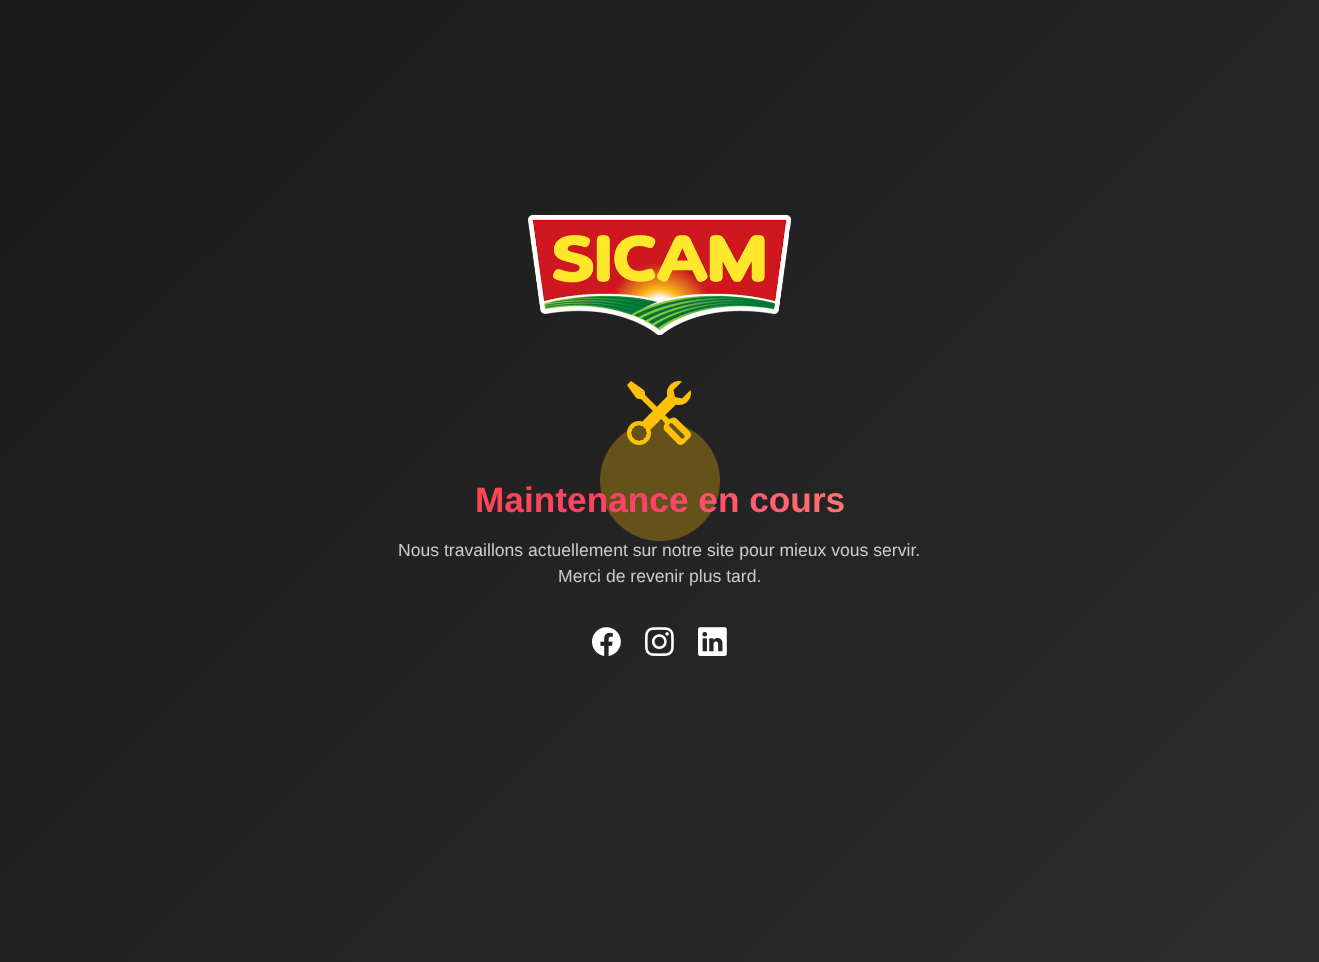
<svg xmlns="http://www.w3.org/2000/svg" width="1319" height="962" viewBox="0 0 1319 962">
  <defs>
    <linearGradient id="g1" gradientUnits="userSpaceOnUse" x1="102" y1="500" x2="1218" y2="500"><stop offset="0" stop-color="#ff4b2b"/><stop offset="0.5" stop-color="#ff416c"/><stop offset="1" stop-color="#ffde7d"/></linearGradient>
    <linearGradient id="g2" gradientUnits="userSpaceOnUse" x1="89" y1="-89" x2="1230" y2="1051"><stop offset="0" stop-color="#1a1a1a"/><stop offset="1" stop-color="#2c2c2c"/></linearGradient>
  </defs>
  <rect width="100%" height="100%" fill="#ffffff"/>
  <rect x="0" y="0" width="1319" height="962" fill="url(#g2)"/>
  <image x="527" y="214" width="264" height="121" href="img1.png"/>
  <circle cx="660" cy="481" r="60" fill="#65521b"/>
  <image x="627" y="381" width="64" height="64" href="img2.png"/>
  <text x="475" y="512" font-family="Liberation Sans" font-size="35.25" font-weight="bold" fill="url(#g1)">Maintenance en cours</text>
  <text x="398" y="556" font-family="Liberation Sans" font-size="17.6" fill="#cccccc">Nous travaillons actuellement sur notre site pour mieux vous servir.</text>
  <text x="558" y="582" font-family="Liberation Sans" font-size="17.6" fill="#cccccc">Merci de revenir plus tard.</text>
  <image x="592" y="627" width="29" height="29" href="img3.png"/>
  <image x="645" y="627" width="29" height="29" href="img4.png"/>
  <image x="698" y="627" width="29" height="29" href="img5.png"/>
</svg>
